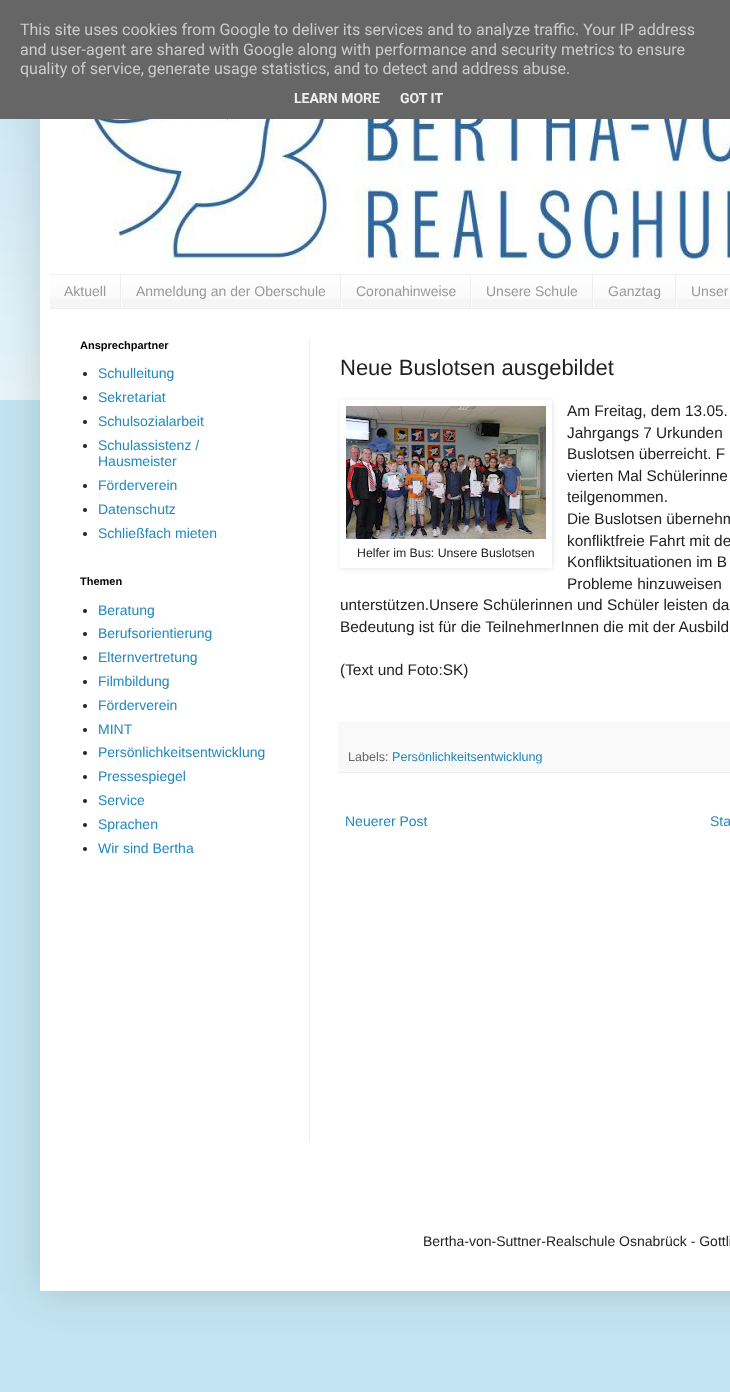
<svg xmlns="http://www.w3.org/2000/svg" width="730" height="1392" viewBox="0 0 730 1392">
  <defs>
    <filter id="blur1" x="-50%" y="-200%" width="200%" height="500%"><feGaussianBlur stdDeviation="20"/></filter>
    <clipPath id="clip1"><path d="M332 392H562V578H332ZM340 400H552V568H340Z" clip-rule="evenodd"/></clipPath>
    <filter id="blur2" x="-50%" y="-200%" width="200%" height="500%"><feGaussianBlur stdDeviation="2.5"/></filter>
  </defs>
  <rect width="100%" height="100%" fill="#c2e4f2"/>
  <image x="0" y="119" width="40" height="281" href="img1.png"/>
  <rect x="40" y="30" width="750" height="1261" fill="#000000" fill-opacity="0.15" filter="url(#blur1)"/>
  <rect x="0" y="0" width="730" height="119" fill="#666666"/>
  <text x="20" y="35" font-family="Roboto" font-size="16" fill="#cccccc">This site uses cookies from Google to deliver its services and to analyze traffic. Your IP address</text>
  <text x="20" y="55" font-family="Roboto" font-size="16" fill="#cccccc">and user-agent are shared with Google along with performance and security metrics to ensure</text>
  <text x="20" y="74" font-family="Roboto" font-size="16" fill="#cccccc">quality of service, generate usage statistics, and to detect and address abuse.</text>
  <text x="294" y="103" font-family="Roboto" font-size="14" font-weight="bold" fill="#eeeeee">LEARN MORE</text>
  <text x="400" y="103" font-family="Roboto" font-size="14" font-weight="bold" fill="#eeeeee">GOT IT</text>
  <rect x="40" y="119" width="690" height="1172" fill="#ffffff"/>
  <image x="82" y="119" width="648" height="146" href="img2.png"/>
  <rect x="50" y="276" width="680" height="32" fill="#f5f5f5"/>
  <image x="50" y="275" width="680" height="24" href="img3.png"/>
  <rect x="50" y="274" width="680" height="1" fill="#eeeeee"/>
  <rect x="50" y="308" width="680" height="1" fill="#eeeeee"/>
  <rect x="120" y="275" width="1" height="33" fill="#eeeeee"/>
  <text x="64" y="296" font-family="Liberation Sans" font-size="14" fill="#999999">Aktuell</text>
  <rect x="340" y="275" width="1" height="33" fill="#eeeeee"/>
  <rect x="121" y="286" width="1" height="22" fill="#ffffff"/>
  <text x="136" y="296" font-family="Liberation Sans" font-size="14" fill="#999999">Anmeldung an der Oberschule</text>
  <rect x="470" y="275" width="1" height="33" fill="#eeeeee"/>
  <rect x="341" y="286" width="1" height="22" fill="#ffffff"/>
  <text x="356" y="296" font-family="Liberation Sans" font-size="14" fill="#999999">Coronahinweise</text>
  <rect x="592" y="275" width="1" height="33" fill="#eeeeee"/>
  <rect x="471" y="286" width="1" height="22" fill="#ffffff"/>
  <text x="486" y="296" font-family="Liberation Sans" font-size="14" fill="#999999">Unsere Schule</text>
  <rect x="675" y="275" width="1" height="33" fill="#eeeeee"/>
  <rect x="593" y="286" width="1" height="22" fill="#ffffff"/>
  <text x="608" y="296" font-family="Liberation Sans" font-size="14" fill="#999999">Ganztag</text>
  <rect x="676" y="286" width="1" height="22" fill="#ffffff"/>
  <text x="691" y="296" font-family="Liberation Sans" font-size="14" fill="#999999">Unser</text>
  <rect x="309" y="339" width="1" height="803" fill="#eeeeee"/>
  <text x="80" y="349" font-family="Liberation Sans" font-size="11" font-weight="bold" fill="#000000">Ansprechpartner</text>
  <circle cx="85" cy="374" r="2" fill="#222222"/>
  <text x="98" y="378" font-family="Liberation Sans" font-size="14" fill="#2288bb">Schulleitung</text>
  <circle cx="85" cy="398" r="2" fill="#222222"/>
  <text x="98" y="402" font-family="Liberation Sans" font-size="14" fill="#2288bb">Sekretariat</text>
  <circle cx="85" cy="422" r="2" fill="#222222"/>
  <text x="98" y="426" font-family="Liberation Sans" font-size="14" fill="#2288bb">Schulsozialarbeit</text>
  <circle cx="85" cy="446" r="2" fill="#222222"/>
  <text x="98" y="450" font-family="Liberation Sans" font-size="14" fill="#2288bb">Schulassistenz /</text>
  <text x="98" y="466" font-family="Liberation Sans" font-size="14" fill="#2288bb">Hausmeister</text>
  <circle cx="85" cy="486" r="2" fill="#222222"/>
  <text x="98" y="490" font-family="Liberation Sans" font-size="14" fill="#2288bb">Förderverein</text>
  <circle cx="85" cy="510" r="2" fill="#222222"/>
  <text x="98" y="514" font-family="Liberation Sans" font-size="14" fill="#2288bb">Datenschutz</text>
  <circle cx="85" cy="534" r="2" fill="#222222"/>
  <text x="98" y="538" font-family="Liberation Sans" font-size="14" fill="#2288bb">Schließfach mieten</text>
  <text x="80" y="585" font-family="Liberation Sans" font-size="11" font-weight="bold" fill="#000000">Themen</text>
  <circle cx="85" cy="611" r="2" fill="#222222"/>
  <text x="98" y="615" font-family="Liberation Sans" font-size="14" fill="#2288bb">Beratung</text>
  <circle cx="85" cy="634" r="2" fill="#222222"/>
  <text x="98" y="638" font-family="Liberation Sans" font-size="14" fill="#2288bb">Berufsorientierung</text>
  <circle cx="85" cy="658" r="2" fill="#222222"/>
  <text x="98" y="662" font-family="Liberation Sans" font-size="14" fill="#2288bb">Elternvertretung</text>
  <circle cx="85" cy="682" r="2" fill="#222222"/>
  <text x="98" y="686" font-family="Liberation Sans" font-size="14" fill="#2288bb">Filmbildung</text>
  <circle cx="85" cy="706" r="2" fill="#222222"/>
  <text x="98" y="710" font-family="Liberation Sans" font-size="14" fill="#2288bb">Förderverein</text>
  <circle cx="85" cy="730" r="2" fill="#222222"/>
  <text x="98" y="734" font-family="Liberation Sans" font-size="14" fill="#2288bb">MINT</text>
  <circle cx="85" cy="753" r="2" fill="#222222"/>
  <text x="98" y="757" font-family="Liberation Sans" font-size="14" fill="#2288bb">Persönlichkeitsentwicklung</text>
  <circle cx="85" cy="777" r="2" fill="#222222"/>
  <text x="98" y="781" font-family="Liberation Sans" font-size="14" fill="#2288bb">Pressespiegel</text>
  <circle cx="85" cy="801" r="2" fill="#222222"/>
  <text x="98" y="805" font-family="Liberation Sans" font-size="14" fill="#2288bb">Service</text>
  <circle cx="85" cy="825" r="2" fill="#222222"/>
  <text x="98" y="829" font-family="Liberation Sans" font-size="14" fill="#2288bb">Sprachen</text>
  <circle cx="85" cy="849" r="2" fill="#222222"/>
  <text x="98" y="853" font-family="Liberation Sans" font-size="14" fill="#2288bb">Wir sind Bertha</text>
  <text x="340" y="375" font-family="Liberation Sans" font-size="22" fill="#222222">Neue Buslotsen ausgebildet</text>
  <text x="567" y="416" font-family="Liberation Sans" font-size="15.4" fill="#222222">Am Freitag, dem 13.05.</text>
  <text x="567" y="438" font-family="Liberation Sans" font-size="15.4" fill="#222222">Jahrgangs 7 Urkunden</text>
  <text x="567" y="459" font-family="Liberation Sans" font-size="15.4" fill="#222222">Buslotsen überreicht. F</text>
  <text x="567" y="481" font-family="Liberation Sans" font-size="15.4" fill="#222222">vierten Mal Schülerinne</text>
  <text x="567" y="502" font-family="Liberation Sans" font-size="15.4" fill="#222222">teilgenommen.</text>
  <text x="567" y="524" font-family="Liberation Sans" font-size="15.4" fill="#222222">Die Buslotsen übernehm</text>
  <text x="567" y="546" font-family="Liberation Sans" font-size="15.4" fill="#222222">konfliktfreie Fahrt mit de</text>
  <g clip-path="url(#clip1)">
    <rect x="341" y="401" width="212" height="168" fill="#000000" fill-opacity="0.1" filter="url(#blur2)"/>
  </g>
  <image x="346" y="406" width="200" height="133" href="img4.png"/>
  <text x="357" y="557" font-family="Liberation Sans" font-size="12.3" fill="#222222">Helfer im Bus: Unsere Buslotsen</text>
  <text x="567" y="567" font-family="Liberation Sans" font-size="15.4" fill="#222222">Konfliktsituationen im B</text>
  <text x="567" y="589" font-family="Liberation Sans" font-size="15.4" fill="#222222">Probleme hinzuweisen</text>
  <text x="340" y="610" font-family="Liberation Sans" font-size="15.4" fill="#222222">unterstützen.Unsere Schülerinnen und Schüler leisten da</text>
  <text x="340" y="632" font-family="Liberation Sans" font-size="15.4" fill="#222222">Bedeutung ist für die TeilnehmerInnen die mit der Ausbild</text>
  <text x="340" y="675" font-family="Liberation Sans" font-size="15.4" fill="#222222">(Text und Foto:SK)</text>
  <rect x="338" y="722" width="392" height="50" fill="#f9f9f9"/>
  <rect x="338" y="772" width="392" height="1" fill="#eeeeee"/>
  <text x="348" y="761" font-family="Liberation Sans" font-size="12.6" fill="#666666">Labels:</text>
  <text x="392" y="761" font-family="Liberation Sans" font-size="12.6" fill="#2288bb">Persönlichkeitsentwicklung</text>
  <text x="345" y="826" font-family="Liberation Sans" font-size="14" fill="#2288bb">Neuerer Post</text>
  <text x="710" y="826" font-family="Liberation Sans" font-size="14" fill="#2288bb">Sta</text>
  <text x="423" y="1246" font-family="Liberation Sans" font-size="14" fill="#222222">Bertha-von-Suttner-Realschule Osnabrück - Gottli</text>
</svg>
